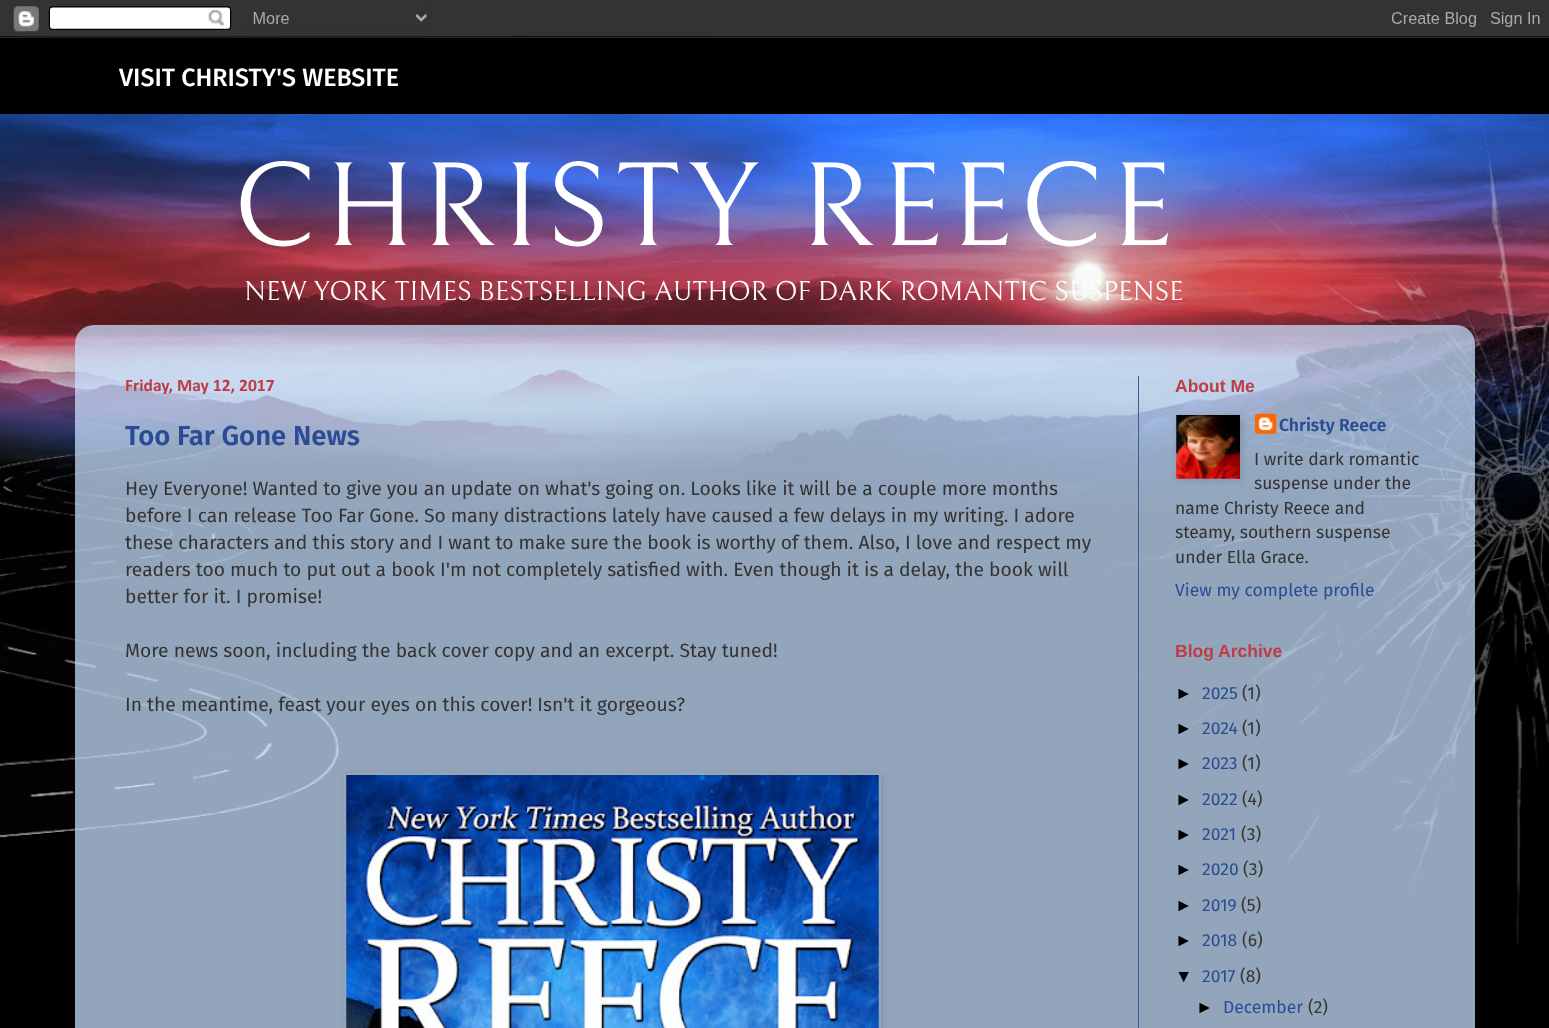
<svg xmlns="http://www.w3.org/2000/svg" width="1549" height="1028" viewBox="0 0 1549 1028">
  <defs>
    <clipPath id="clip1"><path d="M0 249H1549V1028H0ZM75 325H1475V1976H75Z" clip-rule="evenodd"/></clipPath>
    <filter id="blur1" x="-50%" y="-200%" width="200%" height="500%"><feGaussianBlur stdDeviation="25"/></filter>
    <clipPath id="clip2"><path d="M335 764H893V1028H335ZM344 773H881V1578H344Z" clip-rule="evenodd"/></clipPath>
    <filter id="blur2" x="-50%" y="-200%" width="200%" height="500%"><feGaussianBlur stdDeviation="3"/></filter>
  </defs>
  <rect width="100%" height="100%" fill="#000000"/>
  <image x="0" y="36" width="1549" height="929" href="img1.png"/>
  <image x="0" y="0" width="1549" height="38" href="img2.png"/>
  <rect x="0" y="38" width="1549" height="76" fill="#000000"/>
  <text x="119" y="86" font-family="Fira Sans" font-size="25" font-weight="500" fill="#ffffff">VISIT CHRISTY'S WEBSITE</text>
  <text x="233" y="245" font-family="Bellefair" font-size="120" letter-spacing="6.25" fill="#ffffff">CHRISTY REECE</text>
  <text x="244" y="300" font-family="Bellefair" font-size="27.5" fill="#ffffff">NEW YORK TIMES BESTSELLING AUTHOR OF DARK ROMANTIC SUSPENSE</text>
  <g clip-path="url(#clip1)">
    <rect x="75" y="325" width="1400" height="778" fill="#000000" fill-opacity="0.15" filter="url(#blur1)"/>
  </g>
  <path d="M94 325H1456C1466.5 325 1475 333.5 1475 344V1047H75V344C75 333.5 83.5 325 94 325Z" fill="#c4dcf9" fill-opacity="0.75"/>
  <rect x="1138" y="376" width="1" height="652" fill="#415a91"/>
  <text x="125" y="391" font-family="Calibri" font-size="17.5" font-weight="bold" fill="#bf3c44">Friday, May 12, 2017</text>
  <text x="125" y="445" font-family="Fira Sans" font-size="27.5" font-weight="600" fill="#2a4c95">Too Far Gone News</text>
  <text x="125" y="495" font-family="Fira Sans" font-size="19.25" fill="#333333">Hey Everyone! Wanted to give you an update on what's going on. Looks like it will be a couple more months</text>
  <text x="125" y="522" font-family="Fira Sans" font-size="19.25" fill="#333333">before I can release Too Far Gone. So many distractions lately have caused a few delays in my writing. I adore</text>
  <text x="125" y="549" font-family="Fira Sans" font-size="19.25" fill="#333333">these characters and this story and I want to make sure the book is worthy of them. Also, I love and respect my</text>
  <text x="125" y="576" font-family="Fira Sans" font-size="19.25" fill="#333333">readers too much to put out a book I'm not completely satisfied with. Even though it is a delay, the book will</text>
  <text x="125" y="603" font-family="Fira Sans" font-size="19.25" fill="#333333">better for it. I promise!</text>
  <text x="125" y="657" font-family="Fira Sans" font-size="19.25" fill="#333333">More news soon, including the back cover copy and an excerpt. Stay tuned!</text>
  <text x="125" y="711" font-family="Fira Sans" font-size="19.25" fill="#333333">In the meantime, feast your eyes on this cover! Isn't it gorgeous?</text>
  <g clip-path="url(#clip2)">
    <rect x="345" y="774" width="538" height="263" fill="#000000" fill-opacity="0.1" filter="url(#blur2)"/>
  </g>
  <image x="346" y="775" width="533" height="253" href="img3.png"/>
  <text x="1175" y="392" font-family="Liberation Sans" font-size="17.5" font-weight="bold" fill="#bf3c44">About Me</text>
  <rect x="1176" y="415" width="67" height="66" fill="#000000" fill-opacity="0.1" filter="url(#blur2)"/>
  <image x="1176" y="415" width="64" height="64" href="img4.png"/>
  <image x="1255" y="413" width="22" height="21" href="img5.png"/>
  <text x="1279" y="431" font-family="Fira Sans" font-size="17.5" font-weight="600" fill="#2a4c95">Christy Reece</text>
  <text x="1254" y="465" font-family="Fira Sans" font-size="17.5" fill="#333333">I write dark romantic</text>
  <text x="1254" y="489" font-family="Fira Sans" font-size="17.5" fill="#333333">suspense under the</text>
  <text x="1175" y="514" font-family="Fira Sans" font-size="17.5" fill="#333333">name Christy Reece and</text>
  <text x="1175" y="538" font-family="Fira Sans" font-size="17.5" fill="#333333">steamy, southern suspense</text>
  <text x="1175" y="563" font-family="Fira Sans" font-size="17.5" fill="#333333">under Ella Grace.</text>
  <text x="1175" y="596" font-family="Fira Sans" font-size="17.5" fill="#2a4c95">View my complete profile</text>
  <text x="1175" y="657" font-family="Liberation Sans" font-size="17.5" font-weight="bold" fill="#bf3c44">Blog Archive</text>
  <text x="1175" y="699" font-family="Liberation Sans" font-size="17.5" fill="#000000">►</text>
  <text x="1202" y="699" font-family="Fira Sans" font-size="17.5" fill="#2a4c95">2025</text>
  <text x="1242" y="699" font-family="Fira Sans" font-size="17.5" fill="#333333">(1)</text>
  <text x="1175" y="734" font-family="Liberation Sans" font-size="17.5" fill="#000000">►</text>
  <text x="1202" y="734" font-family="Fira Sans" font-size="17.5" fill="#2a4c95">2024</text>
  <text x="1242" y="734" font-family="Fira Sans" font-size="17.5" fill="#333333">(1)</text>
  <text x="1175" y="769" font-family="Liberation Sans" font-size="17.5" fill="#000000">►</text>
  <text x="1202" y="769" font-family="Fira Sans" font-size="17.5" fill="#2a4c95">2023</text>
  <text x="1242" y="769" font-family="Fira Sans" font-size="17.5" fill="#333333">(1)</text>
  <text x="1175" y="805" font-family="Liberation Sans" font-size="17.5" fill="#000000">►</text>
  <text x="1202" y="805" font-family="Fira Sans" font-size="17.5" fill="#2a4c95">2022</text>
  <text x="1242" y="805" font-family="Fira Sans" font-size="17.5" fill="#333333">(4)</text>
  <text x="1175" y="840" font-family="Liberation Sans" font-size="17.5" fill="#000000">►</text>
  <text x="1202" y="840" font-family="Fira Sans" font-size="17.5" fill="#2a4c95">2021</text>
  <text x="1241" y="840" font-family="Fira Sans" font-size="17.5" fill="#333333">(3)</text>
  <text x="1175" y="875" font-family="Liberation Sans" font-size="17.5" fill="#000000">►</text>
  <text x="1202" y="875" font-family="Fira Sans" font-size="17.5" fill="#2a4c95">2020</text>
  <text x="1243" y="875" font-family="Fira Sans" font-size="17.5" fill="#333333">(3)</text>
  <text x="1175" y="911" font-family="Liberation Sans" font-size="17.5" fill="#000000">►</text>
  <text x="1202" y="911" font-family="Fira Sans" font-size="17.5" fill="#2a4c95">2019</text>
  <text x="1241" y="911" font-family="Fira Sans" font-size="17.5" fill="#333333">(5)</text>
  <text x="1175" y="946" font-family="Liberation Sans" font-size="17.5" fill="#000000">►</text>
  <text x="1202" y="946" font-family="Fira Sans" font-size="17.5" fill="#2a4c95">2018</text>
  <text x="1242" y="946" font-family="Fira Sans" font-size="17.5" fill="#333333">(6)</text>
  <text x="1175" y="982" font-family="Liberation Sans" font-size="17.5" fill="#000000">▼</text>
  <text x="1202" y="982" font-family="Fira Sans" font-size="17.5" fill="#2a4c95">2017</text>
  <text x="1240" y="982" font-family="Fira Sans" font-size="17.5" fill="#333333">(8)</text>
  <text x="1196" y="1013" font-family="Liberation Sans" font-size="17.5" fill="#000000">►</text>
  <text x="1223" y="1013" font-family="Fira Sans" font-size="17.5" fill="#2a4c95">December</text>
  <text x="1308" y="1013" font-family="Fira Sans" font-size="17.5" fill="#333333">(2)</text>
</svg>
